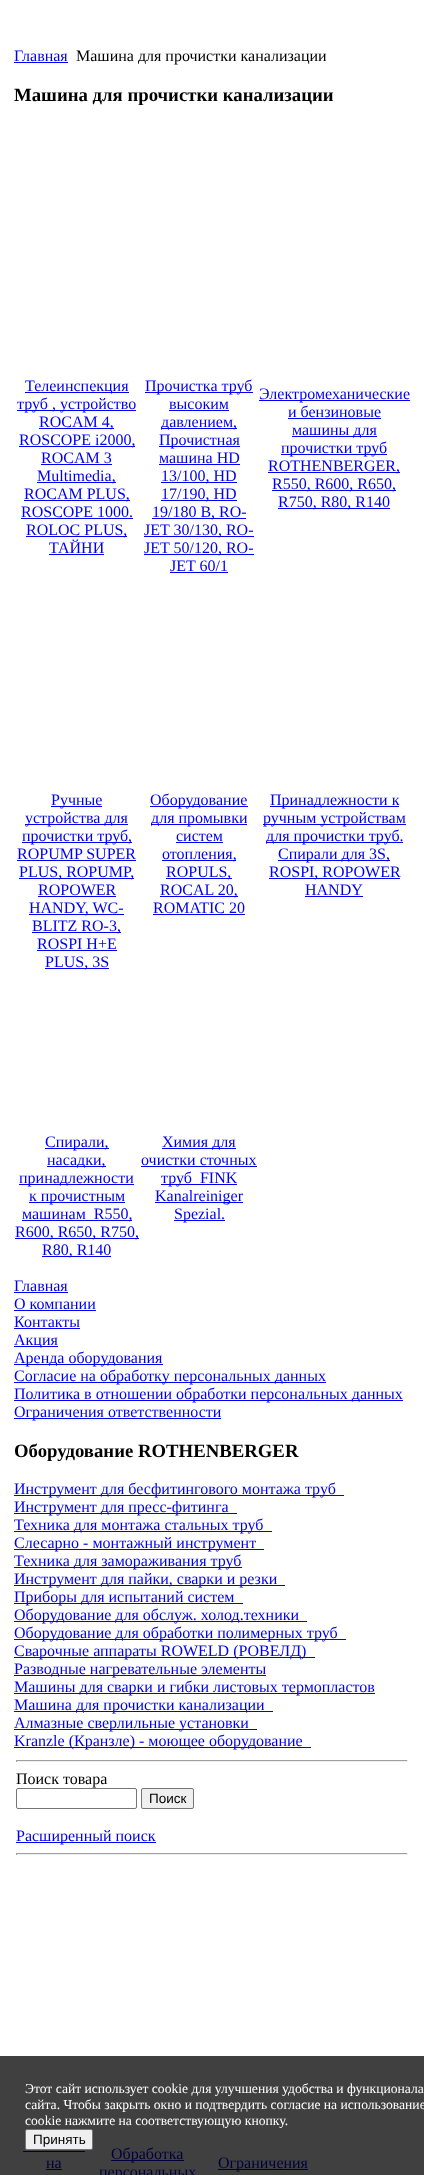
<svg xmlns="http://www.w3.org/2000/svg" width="424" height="2175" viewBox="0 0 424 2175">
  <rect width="100%" height="100%" fill="#ffffff"/>
  <rect x="0" y="2056" width="424" height="119" fill="#404040"/>
  <text x="14" y="61" font-family="Liberation Serif" font-size="16" fill="#0000ee">Главная</text>
  <rect x="14" y="62" width="54" height="1" fill="#0000ee"/>
  <text x="76" y="61" font-family="Liberation Serif" font-size="16" fill="#000000">Машина для прочистки канализации</text>
  <text x="14" y="101" font-family="Liberation Serif" font-size="18.75" font-weight="bold" fill="#000000">Машина для прочистки канализации</text>
  <rect x="25" y="392" width="104" height="1" fill="#0000ee"/>
  <text x="25" y="391" font-family="Liberation Serif" font-size="16" fill="#0000ee">Телеинспекция</text>
  <rect x="17" y="410" width="119" height="1" fill="#0000ee"/>
  <text x="17" y="409" font-family="Liberation Serif" font-size="16" fill="#0000ee">труб , устройство</text>
  <rect x="39" y="428" width="75" height="1" fill="#0000ee"/>
  <text x="39" y="427" font-family="Liberation Serif" font-size="16" fill="#0000ee">ROCAM 4,</text>
  <rect x="19" y="446" width="116" height="1" fill="#0000ee"/>
  <text x="19" y="445" font-family="Liberation Serif" font-size="16" fill="#0000ee">ROSCOPE i2000,</text>
  <text x="41" y="463" font-family="Liberation Serif" font-size="16" fill="#0000ee">ROCAM 3</text>
  <rect x="41" y="464" width="71" height="1" fill="#0000ee"/>
  <rect x="37" y="482" width="79" height="1" fill="#0000ee"/>
  <text x="37" y="481" font-family="Liberation Serif" font-size="16" fill="#0000ee">Multimedia,</text>
  <rect x="24" y="500" width="106" height="1" fill="#0000ee"/>
  <text x="24" y="499" font-family="Liberation Serif" font-size="16" fill="#0000ee">ROCAM PLUS,</text>
  <text x="21" y="517" font-family="Liberation Serif" font-size="16" fill="#0000ee">ROSCOPE 1000.</text>
  <rect x="21" y="518" width="112" height="1" fill="#0000ee"/>
  <rect x="26" y="536" width="101" height="1" fill="#0000ee"/>
  <text x="26" y="535" font-family="Liberation Serif" font-size="16" fill="#0000ee">ROLOC PLUS,</text>
  <text x="49" y="553" font-family="Liberation Serif" font-size="16" fill="#0000ee">ТАЙНИ</text>
  <rect x="49" y="554" width="55" height="1" fill="#0000ee"/>
  <rect x="145" y="392" width="108" height="1" fill="#0000ee"/>
  <text x="145" y="391" font-family="Liberation Serif" font-size="16" fill="#0000ee">Прочистка труб</text>
  <text x="169" y="409" font-family="Liberation Serif" font-size="16" fill="#0000ee">высоким</text>
  <rect x="169" y="410" width="60" height="1" fill="#0000ee"/>
  <rect x="161" y="428" width="76" height="1" fill="#0000ee"/>
  <text x="161" y="427" font-family="Liberation Serif" font-size="16" fill="#0000ee">давлением,</text>
  <rect x="159" y="446" width="81" height="1" fill="#0000ee"/>
  <text x="159" y="445" font-family="Liberation Serif" font-size="16" fill="#0000ee">Прочистная</text>
  <text x="159" y="463" font-family="Liberation Serif" font-size="16" fill="#0000ee">машина HD</text>
  <rect x="159" y="464" width="81" height="1" fill="#0000ee"/>
  <rect x="161" y="482" width="76" height="1" fill="#0000ee"/>
  <text x="161" y="481" font-family="Liberation Serif" font-size="16" fill="#0000ee">13/100, HD</text>
  <rect x="161" y="500" width="76" height="1" fill="#0000ee"/>
  <text x="161" y="499" font-family="Liberation Serif" font-size="16" fill="#0000ee">17/190, HD</text>
  <rect x="152" y="518" width="94" height="1" fill="#0000ee"/>
  <text x="152" y="517" font-family="Liberation Serif" font-size="16" fill="#0000ee">19/180 В, RO-</text>
  <rect x="144" y="536" width="110" height="1" fill="#0000ee"/>
  <text x="144" y="535" font-family="Liberation Serif" font-size="16" fill="#0000ee">JET 30/130, RO-</text>
  <rect x="144" y="554" width="110" height="1" fill="#0000ee"/>
  <text x="144" y="553" font-family="Liberation Serif" font-size="16" fill="#0000ee">JET 50/120, RO-</text>
  <text x="170" y="571" font-family="Liberation Serif" font-size="16" fill="#0000ee">JET 60/1</text>
  <rect x="170" y="572" width="58" height="1" fill="#0000ee"/>
  <rect x="259" y="400" width="151" height="1" fill="#0000ee"/>
  <text x="259" y="399" font-family="Liberation Serif" font-size="16" fill="#0000ee">Электромеханические</text>
  <text x="288" y="417" font-family="Liberation Serif" font-size="16" fill="#0000ee">и бензиновые</text>
  <rect x="288" y="418" width="93" height="1" fill="#0000ee"/>
  <rect x="292" y="436" width="85" height="1" fill="#0000ee"/>
  <text x="292" y="435" font-family="Liberation Serif" font-size="16" fill="#0000ee">машины для</text>
  <rect x="281" y="454" width="106" height="1" fill="#0000ee"/>
  <text x="281" y="453" font-family="Liberation Serif" font-size="16" fill="#0000ee">прочистки труб</text>
  <rect x="268" y="472" width="132" height="1" fill="#0000ee"/>
  <text x="268" y="471" font-family="Liberation Serif" font-size="16" fill="#0000ee">ROTHENBERGER,</text>
  <rect x="272" y="490" width="124" height="1" fill="#0000ee"/>
  <text x="272" y="489" font-family="Liberation Serif" font-size="16" fill="#0000ee">R550, R600, R650,</text>
  <rect x="278" y="508" width="112" height="1" fill="#0000ee"/>
  <text x="278" y="507" font-family="Liberation Serif" font-size="16" fill="#0000ee">R750, R80, R140</text>
  <rect x="51" y="806" width="51" height="1" fill="#0000ee"/>
  <text x="51" y="805" font-family="Liberation Serif" font-size="16" fill="#0000ee">Ручные</text>
  <rect x="25" y="824" width="103" height="1" fill="#0000ee"/>
  <text x="25" y="823" font-family="Liberation Serif" font-size="16" fill="#0000ee">устройства для</text>
  <rect x="22" y="842" width="110" height="1" fill="#0000ee"/>
  <text x="22" y="841" font-family="Liberation Serif" font-size="16" fill="#0000ee">прочистки труб,</text>
  <text x="17" y="859" font-family="Liberation Serif" font-size="16" fill="#0000ee">ROPUMP SUPER</text>
  <rect x="17" y="860" width="119" height="1" fill="#0000ee"/>
  <rect x="19" y="878" width="115" height="1" fill="#0000ee"/>
  <text x="19" y="877" font-family="Liberation Serif" font-size="16" fill="#0000ee">PLUS, ROPUMP,</text>
  <text x="38" y="895" font-family="Liberation Serif" font-size="16" fill="#0000ee">ROPOWER</text>
  <rect x="38" y="896" width="78" height="1" fill="#0000ee"/>
  <rect x="29" y="914" width="95" height="1" fill="#0000ee"/>
  <text x="29" y="913" font-family="Liberation Serif" font-size="16" fill="#0000ee">HANDY, WC-</text>
  <rect x="32" y="932" width="89" height="1" fill="#0000ee"/>
  <text x="32" y="931" font-family="Liberation Serif" font-size="16" fill="#0000ee">BLITZ RO-3,</text>
  <text x="37" y="949" font-family="Liberation Serif" font-size="16" fill="#0000ee">ROSPI H+E</text>
  <rect x="37" y="950" width="80" height="1" fill="#0000ee"/>
  <rect x="45" y="968" width="64" height="1" fill="#0000ee"/>
  <text x="45" y="967" font-family="Liberation Serif" font-size="16" fill="#0000ee">PLUS, 3S</text>
  <rect x="150" y="806" width="98" height="1" fill="#0000ee"/>
  <text x="150" y="805" font-family="Liberation Serif" font-size="16" fill="#0000ee">Оборудование</text>
  <rect x="151" y="824" width="96" height="1" fill="#0000ee"/>
  <text x="151" y="823" font-family="Liberation Serif" font-size="16" fill="#0000ee">для промывки</text>
  <text x="176" y="841" font-family="Liberation Serif" font-size="16" fill="#0000ee">систем</text>
  <rect x="176" y="842" width="47" height="1" fill="#0000ee"/>
  <rect x="162" y="860" width="74" height="1" fill="#0000ee"/>
  <text x="162" y="859" font-family="Liberation Serif" font-size="16" fill="#0000ee">отопления,</text>
  <rect x="166" y="878" width="66" height="1" fill="#0000ee"/>
  <text x="166" y="877" font-family="Liberation Serif" font-size="16" fill="#0000ee">ROPULS,</text>
  <rect x="160" y="896" width="78" height="1" fill="#0000ee"/>
  <text x="160" y="895" font-family="Liberation Serif" font-size="16" fill="#0000ee">ROCAL 20,</text>
  <text x="153" y="913" font-family="Liberation Serif" font-size="16" fill="#0000ee">ROMATIC 20</text>
  <rect x="153" y="914" width="92" height="1" fill="#0000ee"/>
  <rect x="270" y="806" width="129" height="1" fill="#0000ee"/>
  <text x="270" y="805" font-family="Liberation Serif" font-size="16" fill="#0000ee">Принадлежности к</text>
  <rect x="263" y="824" width="143" height="1" fill="#0000ee"/>
  <text x="263" y="823" font-family="Liberation Serif" font-size="16" fill="#0000ee">ручным устройствам</text>
  <rect x="266" y="842" width="137" height="1" fill="#0000ee"/>
  <text x="266" y="841" font-family="Liberation Serif" font-size="16" fill="#0000ee">для прочистки труб.</text>
  <rect x="278" y="860" width="112" height="1" fill="#0000ee"/>
  <text x="278" y="859" font-family="Liberation Serif" font-size="16" fill="#0000ee">Спирали для 3S,</text>
  <rect x="269" y="878" width="131" height="1" fill="#0000ee"/>
  <text x="269" y="877" font-family="Liberation Serif" font-size="16" fill="#0000ee">ROSPI, ROPOWER</text>
  <text x="305" y="895" font-family="Liberation Serif" font-size="16" fill="#0000ee">HANDY</text>
  <rect x="305" y="896" width="58" height="1" fill="#0000ee"/>
  <rect x="45" y="1148" width="64" height="1" fill="#0000ee"/>
  <text x="45" y="1147" font-family="Liberation Serif" font-size="16" fill="#0000ee">Спирали,</text>
  <rect x="47" y="1166" width="59" height="1" fill="#0000ee"/>
  <text x="47" y="1165" font-family="Liberation Serif" font-size="16" fill="#0000ee">насадки,</text>
  <rect x="19" y="1184" width="115" height="1" fill="#0000ee"/>
  <text x="19" y="1183" font-family="Liberation Serif" font-size="16" fill="#0000ee">принадлежности</text>
  <rect x="29" y="1202" width="96" height="1" fill="#0000ee"/>
  <text x="29" y="1201" font-family="Liberation Serif" font-size="16" fill="#0000ee">к прочистным</text>
  <rect x="22" y="1220" width="110" height="1" fill="#0000ee"/>
  <text x="22" y="1219" font-family="Liberation Serif" font-size="16" fill="#0000ee" xml:space="preserve">машинам  R550,</text>
  <rect x="15" y="1238" width="124" height="1" fill="#0000ee"/>
  <text x="15" y="1237" font-family="Liberation Serif" font-size="16" fill="#0000ee">R600, R650, R750,</text>
  <rect x="42" y="1256" width="69" height="1" fill="#0000ee"/>
  <text x="42" y="1255" font-family="Liberation Serif" font-size="16" fill="#0000ee">R80, R140</text>
  <rect x="162" y="1148" width="74" height="1" fill="#0000ee"/>
  <text x="162" y="1147" font-family="Liberation Serif" font-size="16" fill="#0000ee">Химия для</text>
  <text x="141" y="1165" font-family="Liberation Serif" font-size="16" fill="#0000ee">очистки сточных</text>
  <rect x="141" y="1166" width="116" height="1" fill="#0000ee"/>
  <rect x="161" y="1184" width="76" height="1" fill="#0000ee"/>
  <text x="161" y="1183" font-family="Liberation Serif" font-size="16" fill="#0000ee" xml:space="preserve">труб  FINK</text>
  <rect x="155" y="1202" width="88" height="1" fill="#0000ee"/>
  <text x="155" y="1201" font-family="Liberation Serif" font-size="16" fill="#0000ee">Kanalreiniger</text>
  <rect x="174" y="1220" width="51" height="1" fill="#0000ee"/>
  <text x="174" y="1219" font-family="Liberation Serif" font-size="16" fill="#0000ee">Spezial.</text>
  <text x="14" y="1291" font-family="Liberation Serif" font-size="16" fill="#0000ee">Главная</text>
  <rect x="14" y="1292" width="54" height="1" fill="#0000ee"/>
  <text x="14" y="1309" font-family="Liberation Serif" font-size="16" fill="#0000ee">О компании</text>
  <rect x="14" y="1310" width="82" height="1" fill="#0000ee"/>
  <text x="14" y="1327" font-family="Liberation Serif" font-size="16" fill="#0000ee">Контакты</text>
  <rect x="14" y="1328" width="66" height="1" fill="#0000ee"/>
  <rect x="14" y="1346" width="44" height="1" fill="#0000ee"/>
  <text x="14" y="1345" font-family="Liberation Serif" font-size="16" fill="#0000ee">Акция</text>
  <rect x="14" y="1364" width="149" height="1" fill="#0000ee"/>
  <text x="14" y="1363" font-family="Liberation Serif" font-size="16" fill="#0000ee">Аренда оборудования</text>
  <rect x="14" y="1382" width="312" height="1" fill="#0000ee"/>
  <text x="14" y="1381" font-family="Liberation Serif" font-size="16" fill="#0000ee">Согласие на обработку персональных данных</text>
  <rect x="14" y="1400" width="389" height="1" fill="#0000ee"/>
  <text x="14" y="1399" font-family="Liberation Serif" font-size="16" fill="#0000ee">Политика в отношении обработки персональных данных</text>
  <rect x="14" y="1418" width="207" height="1" fill="#0000ee"/>
  <text x="14" y="1417" font-family="Liberation Serif" font-size="16" fill="#0000ee">Ограничения ответственности</text>
  <text x="14" y="1457" font-family="Liberation Serif" font-size="18.75" font-weight="bold" fill="#000000">Оборудование ROTHENBERGER</text>
  <rect x="14" y="1495" width="330" height="1" fill="#0000ee"/>
  <text x="14" y="1494" font-family="Liberation Serif" font-size="16" fill="#0000ee">Инструмент для бесфитингового монтажа труб</text>
  <rect x="14" y="1513" width="223" height="1" fill="#0000ee"/>
  <text x="14" y="1512" font-family="Liberation Serif" font-size="16" fill="#0000ee">Инструмент для пресс-фитинга</text>
  <rect x="14" y="1531" width="258" height="1" fill="#0000ee"/>
  <text x="14" y="1530" font-family="Liberation Serif" font-size="16" fill="#0000ee">Техника для монтажа стальных труб</text>
  <rect x="14" y="1549" width="250" height="1" fill="#0000ee"/>
  <text x="14" y="1548" font-family="Liberation Serif" font-size="16" fill="#0000ee">Слесарно - монтажный инструмент</text>
  <rect x="14" y="1567" width="228" height="1" fill="#0000ee"/>
  <text x="14" y="1566" font-family="Liberation Serif" font-size="16" fill="#0000ee">Техника для замораживания труб</text>
  <rect x="14" y="1585" width="271" height="1" fill="#0000ee"/>
  <text x="14" y="1584" font-family="Liberation Serif" font-size="16" fill="#0000ee">Инструмент для пайки, сварки и резки</text>
  <rect x="14" y="1603" width="229" height="1" fill="#0000ee"/>
  <text x="14" y="1602" font-family="Liberation Serif" font-size="16" fill="#0000ee">Приборы для испытаний систем</text>
  <rect x="14" y="1621" width="293" height="1" fill="#0000ee"/>
  <text x="14" y="1620" font-family="Liberation Serif" font-size="16" fill="#0000ee">Оборудование для обслуж. холод.техники</text>
  <rect x="14" y="1639" width="332" height="1" fill="#0000ee"/>
  <text x="14" y="1638" font-family="Liberation Serif" font-size="16" fill="#0000ee">Оборудование для обработки полимерных труб</text>
  <rect x="14" y="1657" width="301" height="1" fill="#0000ee"/>
  <text x="14" y="1656" font-family="Liberation Serif" font-size="16" fill="#0000ee">Cварочные аппараты ROWELD (РОВЕЛД)</text>
  <rect x="14" y="1675" width="252" height="1" fill="#0000ee"/>
  <text x="14" y="1674" font-family="Liberation Serif" font-size="16" fill="#0000ee">Разводные нагревательные элементы</text>
  <rect x="14" y="1693" width="361" height="1" fill="#0000ee"/>
  <text x="14" y="1692" font-family="Liberation Serif" font-size="16" fill="#0000ee">Машины для сварки и гибки листовых термопластов</text>
  <rect x="14" y="1711" width="259" height="1" fill="#0000ee"/>
  <text x="14" y="1710" font-family="Liberation Serif" font-size="16" fill="#0000ee">Машина для прочистки канализации</text>
  <rect x="14" y="1729" width="243" height="1" fill="#0000ee"/>
  <text x="14" y="1728" font-family="Liberation Serif" font-size="16" fill="#0000ee">Алмазные сверлильные установки</text>
  <rect x="14" y="1747" width="297" height="1" fill="#0000ee"/>
  <text x="14" y="1746" font-family="Liberation Serif" font-size="16" fill="#0000ee">Kranzle (Кранзле) - моющее оборудование</text>
  <rect x="16" y="1760" width="392" height="1" fill="#9f9f9f"/>
  <rect x="407" y="1760" width="1" height="2" fill="#eeeeee"/>
  <rect x="16" y="1761" width="392" height="1" fill="#eeeeee"/>
  <rect x="16" y="1760" width="1" height="2" fill="#9f9f9f"/>
  <text x="16" y="1784" font-family="Liberation Serif" font-size="16" fill="#000000">Поиск товара</text>
  <rect x="16.5" y="1788.5" width="120" height="20" rx="1.5" fill="none" stroke="#767676"/>
  <rect x="141.5" y="1788.5" width="52" height="20" rx="1.5" fill="#efefef" stroke="#767676"/>
  <text x="149" y="1803" font-family="Liberation Sans" font-size="13.5" fill="#000000">Поиск</text>
  <rect x="16" y="1842" width="140" height="1" fill="#0000ee"/>
  <text x="16" y="1841" font-family="Liberation Serif" font-size="16" fill="#0000ee">Расширенный поиск</text>
  <rect x="16" y="1853" width="392" height="1" fill="#9f9f9f"/>
  <rect x="407" y="1853" width="1" height="2" fill="#eeeeee"/>
  <rect x="16" y="1854" width="392" height="1" fill="#eeeeee"/>
  <rect x="16" y="1853" width="1" height="2" fill="#9f9f9f"/>
  <text x="46" y="2168" font-family="Liberation Serif" font-size="16" fill="#00003c">на</text>
  <rect x="23" y="2151" width="62" height="1" fill="#00003c"/>
  <rect x="46" y="2169" width="16" height="1" fill="#00003c"/>
  <rect x="111" y="2160" width="73" height="1" fill="#00003c"/>
  <text x="111" y="2159" font-family="Liberation Serif" font-size="16" fill="#00003c">Обработка</text>
  <text x="99" y="2177" font-family="Liberation Serif" font-size="16" fill="#00003c">персональных</text>
  <rect x="218" y="2169" width="90" height="1" fill="#00003c"/>
  <text x="218" y="2168" font-family="Liberation Serif" font-size="16" fill="#00003c">Ограничения</text>
  <text x="25" y="2093" font-family="Liberation Serif" font-size="13.6" fill="#ffffff">Этот сайт использует cookie для улучшения удобства и функционала</text>
  <text x="25" y="2109" font-family="Liberation Serif" font-size="13.6" fill="#ffffff">сайта. Чтобы закрыть окно и подтвердить согласие на использование</text>
  <text x="25" y="2125" font-family="Liberation Serif" font-size="13.6" fill="#ffffff">cookie нажмите на соответствующую кнопку.</text>
  <rect x="25.5" y="2129.5" width="67" height="20" rx="1.5" fill="#efefef" stroke="#767676"/>
  <text x="33" y="2144" font-family="Liberation Sans" font-size="13.5" fill="#000000">Принять</text>
</svg>
